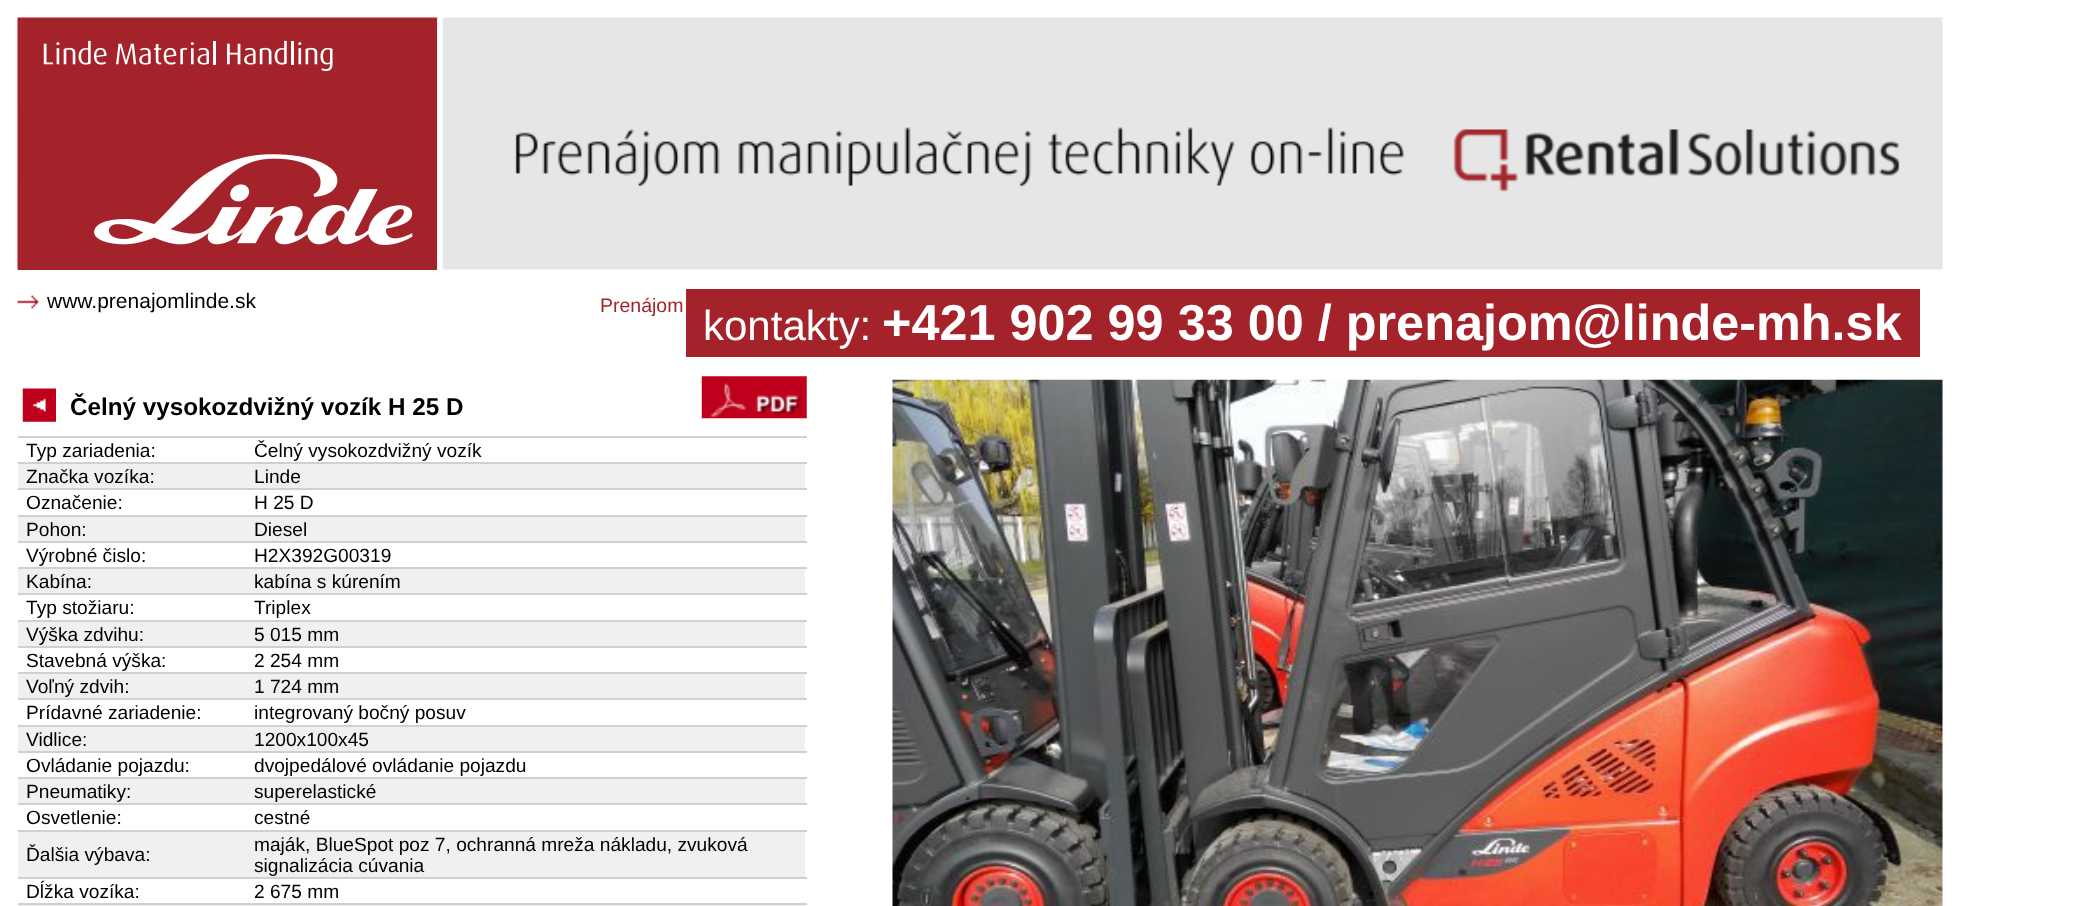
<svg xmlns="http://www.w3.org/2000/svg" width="2080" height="906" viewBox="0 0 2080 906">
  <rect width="100%" height="100%" fill="#ffffff"/>
  <image x="17" y="17" width="1926" height="253" href="img1.png"/>
  <rect x="437" y="18" width="1" height="252" fill="#f0f0f0"/>
  <image x="18" y="18" width="419" height="252" href="img2.png"/>
  <image x="17" y="295" width="22" height="14" href="img3.png"/>
  <text x="47" y="308" font-family="Liberation Sans" font-size="21" fill="#000000">www.prenajomlinde.sk</text>
  <text x="600" y="312" font-family="Liberation Sans" font-size="19.5" fill="#a4232a">Prenájom</text>
  <rect x="686" y="289" width="1234" height="68" fill="#a4232a"/>
  <text x="703" y="340" font-family="Liberation Sans" font-size="42" fill="#ffffff">kontakty:</text>
  <text x="882" y="340" font-family="Liberation Sans" font-size="50.4" font-weight="bold" fill="#ffffff">+421 902 99 33 00 / prenajom@linde-mh.sk</text>
  <image x="22" y="388" width="34" height="34" href="img4.png"/>
  <text x="70" y="415" font-family="Liberation Sans" font-size="24.25" font-weight="bold" fill="#000000">Čelný vysokozdvižný vozík H 25 D</text>
  <text x="26" y="457" font-family="Liberation Sans" font-size="19.15" fill="#000000">Typ zariadenia:</text>
  <rect x="18" y="436" width="789" height="2" fill="#d0d0d0"/>
  <text x="254" y="457" font-family="Liberation Sans" font-size="19.15" fill="#000000">Čelný vysokozdvižný vozík</text>
  <rect x="18" y="464" width="787" height="24" fill="#f0f0f0"/>
  <text x="26" y="483" font-family="Liberation Sans" font-size="19.15" fill="#000000">Značka vozíka:</text>
  <rect x="18" y="462" width="789" height="2" fill="#d0d0d0"/>
  <text x="254" y="483" font-family="Liberation Sans" font-size="19.15" fill="#000000">Linde</text>
  <text x="26" y="509" font-family="Liberation Sans" font-size="19.15" fill="#000000">Označenie:</text>
  <rect x="18" y="488" width="789" height="2" fill="#d0d0d0"/>
  <text x="254" y="509" font-family="Liberation Sans" font-size="19.15" fill="#000000">H 25 D</text>
  <rect x="18" y="517" width="787" height="24" fill="#f0f0f0"/>
  <text x="26" y="536" font-family="Liberation Sans" font-size="19.15" fill="#000000">Pohon:</text>
  <rect x="18" y="515" width="789" height="2" fill="#d0d0d0"/>
  <text x="254" y="536" font-family="Liberation Sans" font-size="19.15" fill="#000000">Diesel</text>
  <text x="26" y="562" font-family="Liberation Sans" font-size="19.15" fill="#000000">Výrobné čislo:</text>
  <rect x="18" y="541" width="789" height="2" fill="#d0d0d0"/>
  <text x="254" y="562" font-family="Liberation Sans" font-size="19.15" fill="#000000">H2X392G00319</text>
  <rect x="18" y="569" width="787" height="24" fill="#f0f0f0"/>
  <text x="26" y="588" font-family="Liberation Sans" font-size="19.15" fill="#000000">Kabína:</text>
  <rect x="18" y="567" width="789" height="2" fill="#d0d0d0"/>
  <text x="254" y="588" font-family="Liberation Sans" font-size="19.15" fill="#000000">kabína s kúrením</text>
  <text x="26" y="614" font-family="Liberation Sans" font-size="19.15" fill="#000000">Typ stožiaru:</text>
  <rect x="18" y="593" width="789" height="2" fill="#d0d0d0"/>
  <text x="254" y="614" font-family="Liberation Sans" font-size="19.15" fill="#000000">Triplex</text>
  <rect x="18" y="622" width="787" height="24" fill="#f0f0f0"/>
  <text x="26" y="641" font-family="Liberation Sans" font-size="19.15" fill="#000000">Výška zdvihu:</text>
  <rect x="18" y="620" width="789" height="2" fill="#d0d0d0"/>
  <text x="254" y="641" font-family="Liberation Sans" font-size="19.15" fill="#000000">5 015 mm</text>
  <text x="26" y="667" font-family="Liberation Sans" font-size="19.15" fill="#000000">Stavebná výška:</text>
  <rect x="18" y="646" width="789" height="2" fill="#d0d0d0"/>
  <text x="254" y="667" font-family="Liberation Sans" font-size="19.15" fill="#000000">2 254 mm</text>
  <rect x="18" y="674" width="787" height="24" fill="#f0f0f0"/>
  <text x="26" y="693" font-family="Liberation Sans" font-size="19.15" fill="#000000">Voľný zdvih:</text>
  <rect x="18" y="672" width="789" height="2" fill="#d0d0d0"/>
  <text x="254" y="693" font-family="Liberation Sans" font-size="19.15" fill="#000000">1 724 mm</text>
  <text x="26" y="719" font-family="Liberation Sans" font-size="19.15" fill="#000000">Prídavné zariadenie:</text>
  <rect x="18" y="698" width="789" height="2" fill="#d0d0d0"/>
  <text x="254" y="719" font-family="Liberation Sans" font-size="19.15" fill="#000000">integrovaný bočný posuv</text>
  <rect x="18" y="727" width="787" height="24" fill="#f0f0f0"/>
  <text x="26" y="746" font-family="Liberation Sans" font-size="19.15" fill="#000000">Vidlice:</text>
  <rect x="18" y="725" width="789" height="2" fill="#d0d0d0"/>
  <text x="254" y="746" font-family="Liberation Sans" font-size="19.15" fill="#000000">1200x100x45</text>
  <text x="26" y="772" font-family="Liberation Sans" font-size="19.15" fill="#000000">Ovládanie pojazdu:</text>
  <rect x="18" y="751" width="789" height="2" fill="#d0d0d0"/>
  <text x="254" y="772" font-family="Liberation Sans" font-size="19.15" fill="#000000">dvojpedálové ovládanie pojazdu</text>
  <rect x="18" y="779" width="787" height="24" fill="#f0f0f0"/>
  <text x="26" y="798" font-family="Liberation Sans" font-size="19.15" fill="#000000">Pneumatiky:</text>
  <rect x="18" y="777" width="789" height="2" fill="#d0d0d0"/>
  <text x="254" y="798" font-family="Liberation Sans" font-size="19.15" fill="#000000">superelastické</text>
  <text x="26" y="824" font-family="Liberation Sans" font-size="19.15" fill="#000000">Osvetlenie:</text>
  <rect x="18" y="803" width="789" height="2" fill="#d0d0d0"/>
  <text x="254" y="824" font-family="Liberation Sans" font-size="19.15" fill="#000000">cestné</text>
  <rect x="18" y="832" width="787" height="45" fill="#f0f0f0"/>
  <text x="26" y="861" font-family="Liberation Sans" font-size="19.15" fill="#000000">Ďalšia výbava:</text>
  <rect x="18" y="830" width="789" height="2" fill="#d0d0d0"/>
  <text x="254" y="851" font-family="Liberation Sans" font-size="19.15" fill="#000000">maják, BlueSpot poz 7, ochranná mreža nákladu, zvuková</text>
  <text x="254" y="872" font-family="Liberation Sans" font-size="19.15" fill="#000000">signalizácia cúvania</text>
  <text x="26" y="898" font-family="Liberation Sans" font-size="19.15" fill="#000000">Dĺžka vozíka:</text>
  <rect x="18" y="877" width="789" height="2" fill="#d0d0d0"/>
  <text x="254" y="898" font-family="Liberation Sans" font-size="19.15" fill="#000000">2 675 mm</text>
  <rect x="18" y="905" width="787" height="1" fill="#f0f0f0"/>
  <rect x="18" y="903" width="789" height="2" fill="#d0d0d0"/>
  <image x="701" y="376" width="106" height="43" href="img5.png"/>
  <image x="892" y="379" width="1051" height="527" href="img6.png"/>
</svg>
